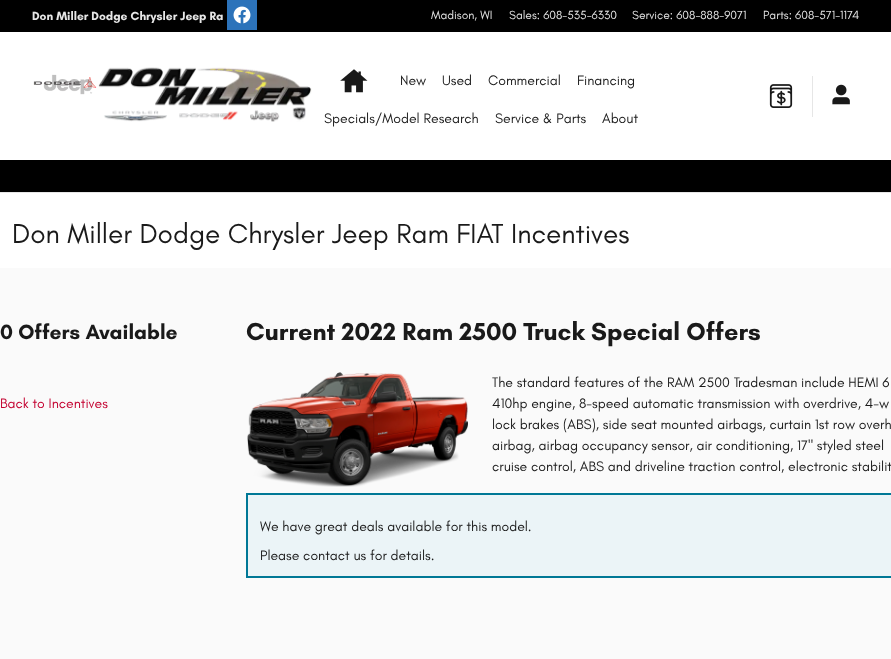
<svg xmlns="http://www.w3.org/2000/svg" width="891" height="659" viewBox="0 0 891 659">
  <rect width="100%" height="100%" fill="#fafafa"/>
  <rect x="0" y="32" width="891" height="128" fill="#ffffff"/>
  <rect x="0" y="192" width="891" height="1" fill="#e6e6e6"/>
  <rect x="0" y="0" width="891" height="32" fill="#000000"/>
  <image x="227" y="0" width="30" height="30" href="img1.png"/>
  <text x="32" y="20" font-family="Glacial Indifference" font-size="12" font-weight="bold" fill="#e6e6e6">Don Miller Dodge Chrysler Jeep Ra</text>
  <text x="431" y="19" font-family="Glacial Indifference" font-size="12" fill="#e6e6e6">Madison, WI</text>
  <text x="509" y="19" font-family="Glacial Indifference" font-size="12" fill="#e6e6e6">Sales: 608-535-6330</text>
  <text x="632" y="19" font-family="Glacial Indifference" font-size="12" fill="#e6e6e6">Service: 608-888-9071</text>
  <text x="763" y="19" font-family="Glacial Indifference" font-size="12" fill="#e6e6e6">Parts: 608-571-1174</text>
  <image x="33" y="77" width="64" height="11" href="img3.png"/>
  <image x="43" y="74" width="50" height="21" href="img2.png"/>
  <image x="98" y="67" width="214" height="55" href="img4.png"/>
  <image x="340" y="69" width="28" height="24" href="img5.png"/>
  <text x="400" y="85" font-family="Glacial Indifference" font-size="14" fill="#1a1a1a">New</text>
  <text x="442" y="85" font-family="Glacial Indifference" font-size="14" fill="#1a1a1a">Used</text>
  <text x="488" y="85" font-family="Glacial Indifference" font-size="14" fill="#1a1a1a">Commercial</text>
  <text x="577" y="85" font-family="Glacial Indifference" font-size="14" fill="#1a1a1a">Financing</text>
  <text x="324" y="123" font-family="Glacial Indifference" font-size="14" fill="#1a1a1a">Specials/Model Research</text>
  <text x="495" y="123" font-family="Glacial Indifference" font-size="14" fill="#1a1a1a">Service &amp; Parts</text>
  <text x="602" y="123" font-family="Glacial Indifference" font-size="14" fill="#1a1a1a">About</text>
  <image x="769" y="84" width="24" height="24" href="img6.png"/>
  <rect x="812" y="76" width="1" height="41" fill="#e6e6e6"/>
  <image x="832" y="84" width="18" height="21" href="img7.png"/>
  <rect x="0" y="160" width="891" height="32" fill="#000000"/>
  <rect x="0" y="193" width="891" height="75" fill="#ffffff"/>
  <text x="12" y="243" font-family="Glacial Indifference" font-size="28" fill="#1a1a1a">Don Miller Dodge Chrysler Jeep Ram FIAT Incentives</text>
  <text x="0" y="339" font-family="Glacial Indifference" font-size="21" font-weight="bold" fill="#1a1a1a">0 Offers Available</text>
  <text x="0" y="408" font-family="Glacial Indifference" font-size="14" fill="#c3002f">Back to Incentives</text>
  <text x="246" y="340" font-family="Glacial Indifference" font-size="25.2" font-weight="bold" fill="#1a1a1a">Current 2022 Ram 2500 Truck Special Offers</text>
  <image x="247" y="372" width="221" height="115" href="img8.png"/>
  <text x="492" y="387" font-family="Glacial Indifference" font-size="14" fill="#1a1a1a">The standard features of the RAM 2500 Tradesman include HEMI 6</text>
  <text x="492" y="408" font-family="Glacial Indifference" font-size="14" fill="#1a1a1a">410hp engine, 8-speed automatic transmission with overdrive, 4-w</text>
  <text x="492" y="429" font-family="Glacial Indifference" font-size="14" fill="#1a1a1a">lock brakes (ABS), side seat mounted airbags, curtain 1st row overh</text>
  <text x="492" y="450" font-family="Glacial Indifference" font-size="14" fill="#1a1a1a">airbag, airbag occupancy sensor, air conditioning, 17" styled steel</text>
  <text x="492" y="471" font-family="Glacial Indifference" font-size="14" fill="#1a1a1a">cruise control, ABS and driveline traction control, electronic stabilit</text>
  <rect x="247" y="494" width="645" height="83" fill="#ebf4f7" stroke="#007896" stroke-width="2"/>
  <text x="260" y="531" font-family="Glacial Indifference" font-size="14" fill="#1a1a1a">We have great deals available for this model.</text>
  <text x="260" y="560" font-family="Glacial Indifference" font-size="14" fill="#1a1a1a">Please contact us for details.</text>
</svg>
